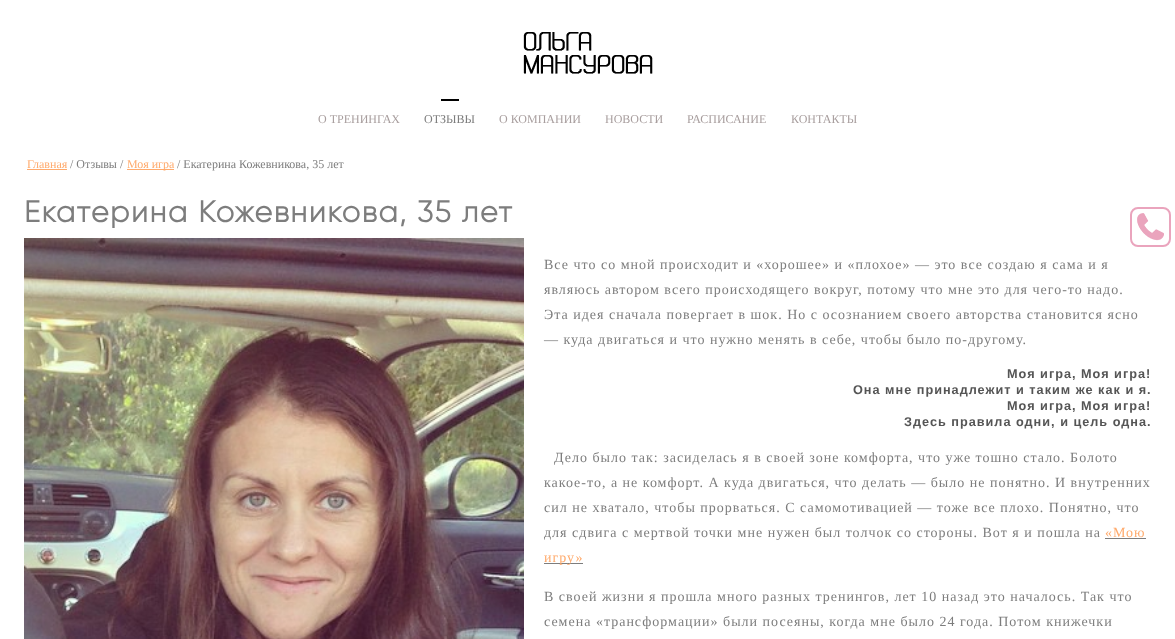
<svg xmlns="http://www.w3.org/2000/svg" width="1175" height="639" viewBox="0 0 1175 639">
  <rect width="100%" height="100%" fill="#ffffff"/>
  <image x="523" y="32" width="130" height="42" href="img1.png"/>
  <text x="318" y="123" font-family="Liberation Serif" font-size="12" fill="#a89e9e">О ТРЕНИНГАХ</text>
  <rect x="441" y="99" width="18" height="2" fill="#000000"/>
  <text x="424" y="123" font-family="Liberation Serif" font-size="12" fill="#7d7d7d">ОТЗЫВЫ</text>
  <text x="499" y="123" font-family="Liberation Serif" font-size="12" fill="#a89e9e">О КОМПАНИИ</text>
  <text x="605" y="123" font-family="Liberation Serif" font-size="12" fill="#a89e9e">НОВОСТИ</text>
  <text x="687" y="123" font-family="Liberation Serif" font-size="12" fill="#a89e9e">РАСПИСАНИЕ</text>
  <text x="791" y="123" font-family="Liberation Serif" font-size="12" fill="#a89e9e">КОНТАКТЫ</text>
  <text x="27" y="168" font-family="Liberation Serif" font-size="12" fill="#ffaa6c">Главная</text>
  <rect x="27" y="169" width="40" height="1" fill="#ffaa6c"/>
  <text x="70" y="168" font-family="Liberation Serif" font-size="12" fill="#7d7d7d">/ Отзывы /</text>
  <rect x="127" y="169" width="47" height="1" fill="#ffaa6c"/>
  <text x="127" y="168" font-family="Liberation Serif" font-size="12" fill="#ffaa6c">Моя игра</text>
  <text x="177" y="168" font-family="Liberation Serif" font-size="12" fill="#7d7d7d">/ Екатерина Кожевникова, 35 лет</text>
  <text x="24" y="222" font-family="Gilroy" font-size="30" font-weight="bold" letter-spacing="1.5" fill="#7d7d7d">Екатерина Кожевникова, 35 лет</text>
  <image x="24" y="238" width="500" height="401" href="img2.png"/>
  <text x="544" y="269" font-family="Liberation Serif" font-size="14" letter-spacing="1" fill="#7d7d7d">Все что со мной происходит и «хорошее» и «плохое» — это все создаю я сама и я</text>
  <text x="544" y="294" font-family="Liberation Serif" font-size="14" letter-spacing="1" fill="#7d7d7d">являюсь автором всего происходящего вокруг, потому что мне это для чего-то надо.</text>
  <text x="544" y="319" font-family="Liberation Serif" font-size="14" letter-spacing="1" fill="#7d7d7d">Эта идея сначала повергает в шок. Но с осознанием своего авторства становится ясно</text>
  <text x="544" y="344" font-family="Liberation Serif" font-size="14" letter-spacing="1" fill="#7d7d7d">— куда двигаться и что нужно менять в себе, чтобы было по-другому.</text>
  <text x="1007" y="378" font-family="Liberation Sans" font-size="12.7" font-weight="bold" letter-spacing="1" fill="#555555">Моя игра, Моя игра!</text>
  <text x="853" y="394" font-family="Liberation Sans" font-size="12.7" font-weight="bold" letter-spacing="1" fill="#555555">Она мне принадлежит и таким же как и я.</text>
  <text x="1007" y="410" font-family="Liberation Sans" font-size="12.7" font-weight="bold" letter-spacing="1" fill="#555555">Моя игра, Моя игра!</text>
  <text x="904" y="426" font-family="Liberation Sans" font-size="12.7" font-weight="bold" letter-spacing="1" fill="#555555">Здесь правила одни, и цель одна.</text>
  <text x="554" y="462" font-family="Liberation Serif" font-size="14" letter-spacing="1" fill="#7d7d7d">Дело было так: засиделась я в своей зоне комфорта, что уже тошно стало. Болото</text>
  <text x="544" y="487" font-family="Liberation Serif" font-size="14" letter-spacing="1" fill="#7d7d7d">какое-то, а не комфорт. А куда двигаться, что делать — было не понятно. И внутренних</text>
  <text x="544" y="512" font-family="Liberation Serif" font-size="14" letter-spacing="1" fill="#7d7d7d">сил не хватало, чтобы прорваться. С самомотивацией — тоже все плохо. Понятно, что</text>
  <text x="544" y="537" font-family="Liberation Serif" font-size="14" letter-spacing="1" fill="#7d7d7d">для сдвига с мертвой точки мне нужен был толчок со стороны. Вот я и пошла на</text>
  <text x="1105" y="537" font-family="Liberation Serif" font-size="14" letter-spacing="1" fill="#ffaa6c">«Мою</text>
  <rect x="1105" y="538" width="41" height="1" fill="#7d7d7d"/>
  <rect x="544" y="563" width="39" height="1" fill="#7d7d7d"/>
  <text x="544" y="562" font-family="Liberation Serif" font-size="14" letter-spacing="1" fill="#ffaa6c">игру»</text>
  <text x="544" y="601" font-family="Liberation Serif" font-size="14" letter-spacing="1" fill="#7d7d7d">В своей жизни я прошла много разных тренингов, лет 10 назад это началось. Так что</text>
  <text x="544" y="626" font-family="Liberation Serif" font-size="14" letter-spacing="1" fill="#7d7d7d">семена «трансформации» были посеяны, когда мне было 24 года. Потом книжечки</text>
  <rect x="1131" y="208" width="39" height="38" rx="7" fill="none" stroke="#eaa4bd" stroke-width="2"/>
  <image x="1137" y="213" width="27" height="28" href="img3.png"/>
</svg>
